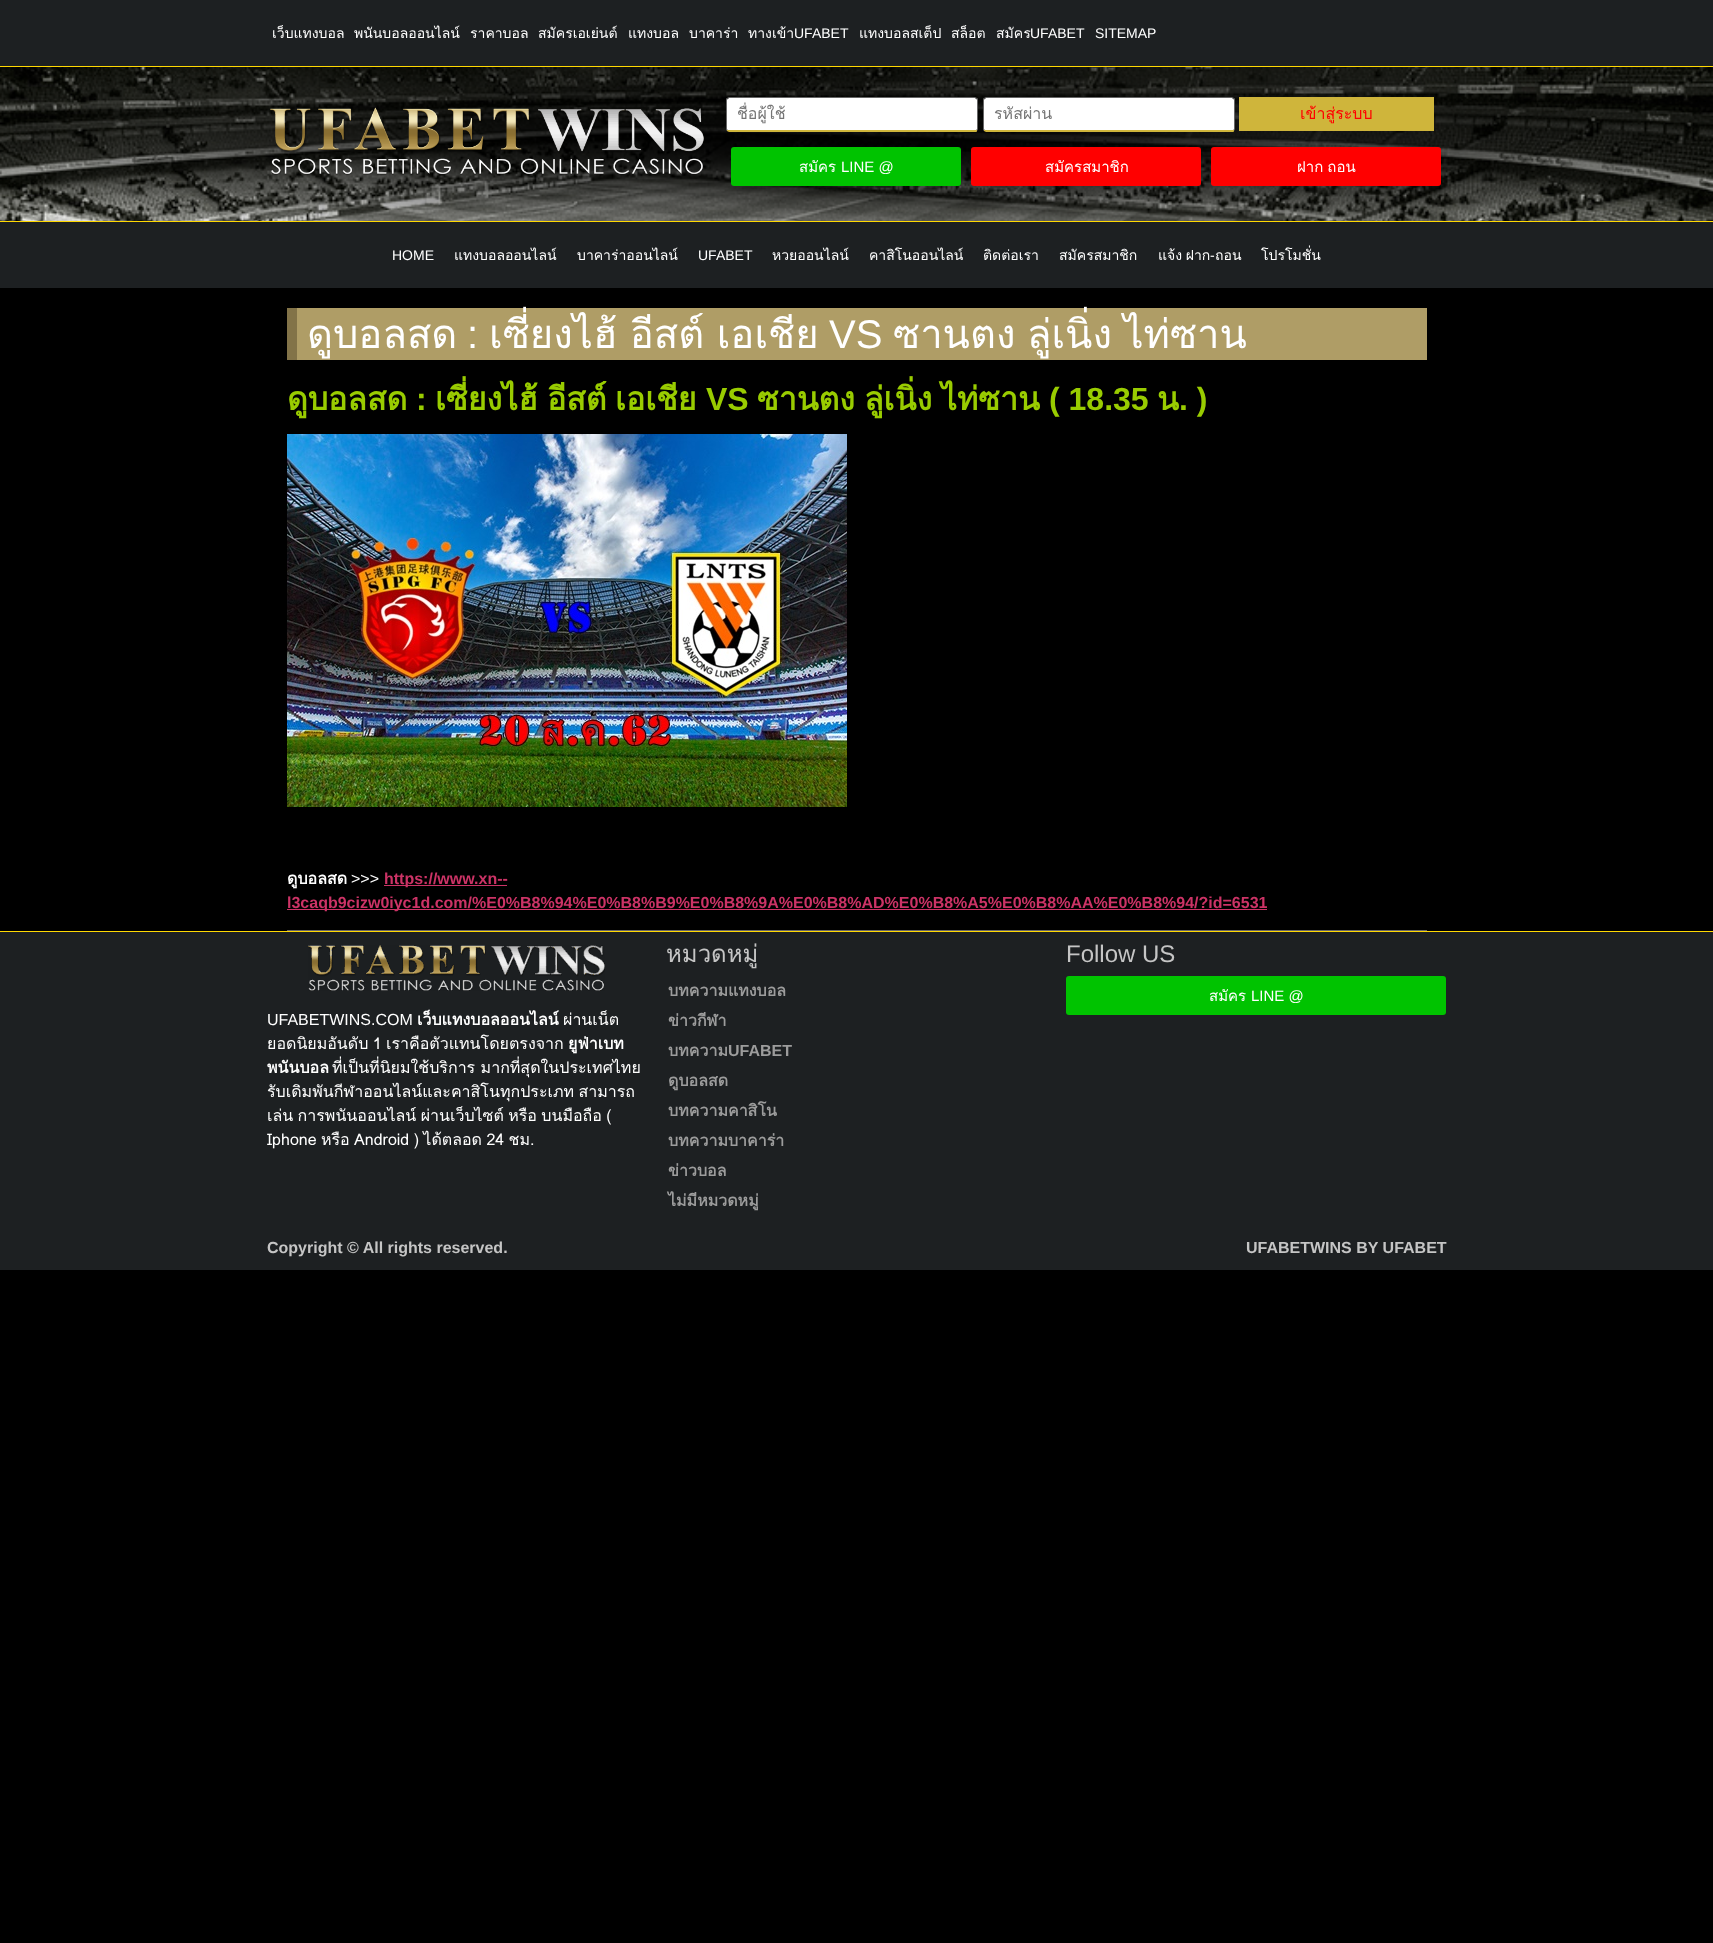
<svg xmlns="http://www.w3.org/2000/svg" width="1713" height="1943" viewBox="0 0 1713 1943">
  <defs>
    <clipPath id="clip1"><rect x="737" y="101" width="230" height="25"/></clipPath>
  </defs>
  <rect width="100%" height="100%" fill="#000000"/>
  <rect x="0" y="0" width="1713" height="66" fill="#1d2022"/>
  <text x="272" y="38" font-family="Loma" font-size="14" fill="#ffffff">เว็บแทงบอล</text>
  <text x="354" y="38" font-family="Loma" font-size="14" fill="#ffffff">พนันบอลออนไลน์</text>
  <text x="470" y="38" font-family="Loma" font-size="14" fill="#ffffff">ราคาบอล</text>
  <text x="538" y="38" font-family="Loma" font-size="14" fill="#ffffff">สมัครเอเย่นต์</text>
  <text x="628" y="38" font-family="Loma" font-size="14" fill="#ffffff">แทงบอล</text>
  <text x="689" y="38" font-family="Loma" font-size="14" fill="#ffffff">บาคาร่า</text>
  <text x="748" y="38" font-family="Loma" font-size="14" fill="#ffffff">ทางเข้า</text>
  <text x="794" y="38" font-family="Liberation Sans" font-size="14" fill="#ffffff">UFABET</text>
  <text x="859" y="38" font-family="Loma" font-size="14" fill="#ffffff">แทงบอลสเต็ป</text>
  <text x="951" y="38" font-family="Loma" font-size="14" fill="#ffffff">สล็อต</text>
  <text x="996" y="38" font-family="Loma" font-size="14" fill="#ffffff">สมัคร</text>
  <text x="1030" y="38" font-family="Liberation Sans" font-size="14" fill="#ffffff">UFABET</text>
  <text x="1095" y="38" font-family="Liberation Sans" font-size="14" fill="#ffffff">SITEMAP</text>
  <image x="0" y="67" width="1713" height="154" href="img1.png"/>
  <rect x="0" y="66" width="1713" height="1" fill="#ffd801"/>
  <rect x="0" y="221" width="1713" height="1" fill="#ffd801"/>
  <image x="270" y="107" width="434" height="69" href="img2.png"/>
  <path d="M729 98H975C976 98 977 99 977 100V129C977 130 976 130 975 130H729C728 130 727 130 727 129V100C727 99 728 98 729 98Z" fill="#ffffff"/>
  <path d="M729 97L727 98L728 99L729 98H975L976 99L977 98L975 97Z" fill="#666666"/>
  <path d="M978 129V100C978 99 978 98 977 98L976.5 98.5L977 100V129.5L977.5 131Z" fill="#666666"/>
  <path d="M729 132H975C976 132 977 132 977 131V130H975H729H727V131Z" fill="#cfb53b"/>
  <path d="M726 100V129C726 130 726 130.5 726.5 131L727 129.5V100L727.5 98.5L727 98C726 98 726 99 726 100Z" fill="#666666"/>
  <g clip-path="url(#clip1)">
    <text x="737" y="119" font-family="Loma" font-size="16" fill="#757575">ชื่อผู้ใช้</text>
  </g>
  <path d="M986 98H1232C1233 98 1234 99 1234 100V129C1234 130 1233 130 1232 130H986C985 130 984 130 984 129V100C984 99 985 98 986 98Z" fill="#ffffff"/>
  <path d="M986 97L984 98L985 99L986 98H1232L1233 99L1234 98L1232 97Z" fill="#666666"/>
  <path d="M1235 129V100C1235 99 1235 98 1234 98L1233.5 98.5L1234 100V129.5L1234.5 131Z" fill="#666666"/>
  <path d="M986 132H1232C1233 132 1234 132 1234 131V130H1232H986H984V131Z" fill="#cfb53b"/>
  <path d="M983 100V129C983 130 983 130.5 983.5 131L984 129.5V100L984.5 98.5L984 98C983 98 983 99 983 100Z" fill="#666666"/>
  <text x="994" y="119" font-family="Loma" font-size="16" fill="#757575">รหัสผ่าน</text>
  <rect x="1239" y="97" width="195" height="34" fill="#cfb53b"/>
  <text x="1300" y="119" font-family="Loma" font-size="16" fill="#ff0000">เข้าสู่ระบบ</text>
  <rect x="731" y="147" width="230" height="39" rx="3" fill="#00c300"/>
  <text x="799" y="172" font-family="Loma" font-size="15" fill="#ffffff">สมัคร</text>
  <text x="841" y="172" font-family="Liberation Sans" font-size="15" fill="#ffffff">LINE @</text>
  <rect x="971" y="147" width="230" height="39" rx="3" fill="#ff0000"/>
  <text x="1045" y="172" font-family="Loma" font-size="15" fill="#ffffff">สมัครสมาชิก</text>
  <rect x="1211" y="147" width="230" height="39" rx="3" fill="#ff0000"/>
  <text x="1297" y="172" word-spacing="-1" font-family="Loma" font-size="15" fill="#ffffff">ฝาก ถอน</text>
  <rect x="0" y="222" width="1713" height="66" fill="#1d2022"/>
  <text x="392" y="260" font-family="Liberation Sans" font-size="14" fill="#ffffff">HOME</text>
  <text x="454" y="260" font-family="Loma" font-size="14" fill="#ffffff">แทงบอลออนไลน์</text>
  <text x="577" y="260" font-family="Loma" font-size="14" fill="#ffffff">บาคาร่าออนไลน์</text>
  <text x="698" y="260" font-family="Liberation Sans" font-size="14" fill="#ffffff">UFABET</text>
  <text x="772" y="260" font-family="Loma" font-size="14" fill="#ffffff">หวยออนไลน์</text>
  <text x="869" y="260" font-family="Loma" font-size="14" fill="#ffffff">คาสิโนออนไลน์</text>
  <text x="983" y="260" font-family="Loma" font-size="14" fill="#ffffff">ติดต่อเรา</text>
  <text x="1059" y="260" font-family="Loma" font-size="14" fill="#ffffff">สมัครสมาชิก</text>
  <text x="1158" y="260" word-spacing="-1" font-family="Loma" font-size="14" fill="#ffffff">แจ้ง ฝาก</text>
  <text x="1210" y="260" font-family="Liberation Sans" font-size="14" fill="#ffffff">-</text>
  <text x="1215" y="260" font-family="Loma" font-size="14" fill="#ffffff">ถอน</text>
  <text x="1261" y="260" font-family="Loma" font-size="14" fill="#ffffff">โปรโมชั่น</text>
  <rect x="287" y="930" width="1140" height="1" fill="#666666"/>
  <rect x="297" y="308" width="1130" height="52" fill="#af9d66"/>
  <rect x="287" y="308" width="10" height="52" fill="#827348"/>
  <text x="307" y="348" font-family="Loma" font-size="40" fill="#ffffff">ดูบอลสด</text>
  <text x="467" y="348" font-family="Liberation Sans" font-size="40" fill="#ffffff">:</text>
  <text x="489" y="348" word-spacing="-1" font-family="Loma" font-size="40" fill="#ffffff">เซี่ยงไฮ้ อีสต์ เอเชีย</text>
  <text x="829" y="348" font-family="Liberation Sans" font-size="40" fill="#ffffff">VS</text>
  <text x="893" y="348" word-spacing="-2" font-family="Loma" font-size="40" fill="#ffffff">ซานตง ลู่เนิ่ง ไท่ซาน</text>
  <text x="287" y="410" font-family="Loma" font-size="32" font-weight="bold" fill="#99cc00">ดูบอลสด</text>
  <text x="416" y="410" font-family="Liberation Sans" font-size="32" font-weight="bold" fill="#99cc00">:</text>
  <text x="435" y="410" font-family="Loma" font-size="32" font-weight="bold" fill="#99cc00">เซี่ยงไฮ้</text>
  <text x="547" y="410" font-family="Loma" font-size="32" font-weight="bold" fill="#99cc00">อีสต์</text>
  <text x="615" y="410" font-family="Loma" font-size="32" font-weight="bold" fill="#99cc00">เอเชีย</text>
  <text x="706" y="410" font-family="Liberation Sans" font-size="32" font-weight="bold" fill="#99cc00">VS</text>
  <text x="757" y="410" font-family="Loma" font-size="32" font-weight="bold" fill="#99cc00">ซานตง</text>
  <text x="864" y="410" font-family="Loma" font-size="32" font-weight="bold" fill="#99cc00">ลู่เนิ่ง</text>
  <text x="941" y="410" font-family="Loma" font-size="32" font-weight="bold" fill="#99cc00">ไท่ซาน</text>
  <text x="1049" y="410" font-family="Liberation Sans" font-size="32" font-weight="bold" fill="#99cc00">( 18.35</text>
  <text x="1157" y="410" font-family="Loma" font-size="32" font-weight="bold" fill="#99cc00">น</text>
  <text x="1179" y="410" font-family="Liberation Sans" font-size="32" font-weight="bold" fill="#99cc00">. )</text>
  <image x="287" y="434" width="560" height="373" href="img3.png"/>
  <text x="287" y="884" font-family="Loma" font-size="16" font-weight="bold" fill="#ffffff">ดูบอลสด</text>
  <text x="351" y="884" font-family="Liberation Sans" font-size="16" fill="#ffffff">&gt;&gt;&gt;</text>
  <rect x="384" y="885" width="123" height="1" fill="#cc3366"/>
  <text x="384" y="884" font-family="Liberation Sans" font-size="16" font-weight="bold" fill="#cc3366">https://www.xn--</text>
  <rect x="287" y="909" width="980" height="1" fill="#cc3366"/>
  <text x="287" y="908" font-family="Liberation Sans" font-size="16" font-weight="bold" fill="#cc3366">l3caqb9cizw0iyc1d.com/%E0%B8%94%E0%B8%B9%E0%B8%9A%E0%B8%AD%E0%B8%A5%E0%B8%AA%E0%B8%94/?id=6531</text>
  <rect x="0" y="932" width="1713" height="338" fill="#1d2022"/>
  <rect x="0" y="931" width="1713" height="1" fill="#ffd801"/>
  <text x="666" y="962" font-family="Loma" font-size="24" fill="#c5c5c5">หมวดหมู่</text>
  <text x="668" y="996" font-family="Loma" font-size="16" font-weight="bold" fill="#9c9c9c">บทความแทงบอล</text>
  <text x="668" y="1026" font-family="Loma" font-size="16" font-weight="bold" fill="#9c9c9c">ข่าวกีฬา</text>
  <text x="668" y="1056" font-family="Loma" font-size="16" font-weight="bold" fill="#9c9c9c">บทความ</text>
  <text x="728" y="1056" font-family="Liberation Sans" font-size="16" font-weight="bold" fill="#9c9c9c">UFABET</text>
  <text x="668" y="1086" font-family="Loma" font-size="16" font-weight="bold" fill="#9c9c9c">ดูบอลสด</text>
  <text x="668" y="1116" font-family="Loma" font-size="16" font-weight="bold" fill="#9c9c9c">บทความคาสิโน</text>
  <text x="668" y="1146" font-family="Loma" font-size="16" font-weight="bold" fill="#9c9c9c">บทความบาคาร่า</text>
  <text x="668" y="1176" font-family="Loma" font-size="16" font-weight="bold" fill="#9c9c9c">ข่าวบอล</text>
  <text x="668" y="1206" font-family="Loma" font-size="16" font-weight="bold" fill="#9c9c9c">ไม่มีหมวดหมู่</text>
  <text x="1066" y="962" font-family="Liberation Sans" font-size="24" fill="#c5c5c5">Follow US</text>
  <rect x="1066" y="976" width="380" height="39" rx="3" fill="#00c300"/>
  <text x="1209" y="1001" font-family="Loma" font-size="15" fill="#ffffff">สมัคร</text>
  <text x="1251" y="1001" font-family="Liberation Sans" font-size="15" fill="#ffffff">LINE @</text>
  <image x="308" y="945" width="297" height="46" href="img4.png"/>
  <text x="267" y="1025" font-family="Liberation Sans" font-size="16" fill="#ffffff">UFABETWINS.COM</text>
  <text x="417" y="1025" font-family="Loma" font-size="16" font-weight="bold" fill="#ffffff">เว็บแทงบอลออนไลน์</text>
  <text x="563" y="1025" font-family="Loma" font-size="16" fill="#ffffff">ผ่านเน็ต</text>
  <text x="267" y="1049" word-spacing="-1" font-family="Loma" font-size="16" fill="#ffffff">ยอดนิยมอันดับ 1 เราคือตัวแทนโดยตรงจาก</text>
  <text x="568" y="1049" font-family="Loma" font-size="16" font-weight="bold" fill="#ffffff">ยูฟ่าเบท</text>
  <text x="267" y="1073" font-family="Loma" font-size="16" font-weight="bold" fill="#ffffff">พนันบอล</text>
  <text x="332" y="1073" font-family="Loma" font-size="16" fill="#ffffff">ที่เป็นที่นิยมใช้บริการ มากที่สุดในประเทศไทย</text>
  <text x="267" y="1097" word-spacing="-1" font-family="Loma" font-size="16" fill="#ffffff">รับเดิมพันกีฬาออนไลน์และคาสิโนทุกประเภท สามารถ</text>
  <text x="267" y="1121" word-spacing="-1" font-family="Loma" font-size="16" fill="#ffffff">เล่น การพนันออนไลน์ ผ่านเว็บไซต์ หรือ บนมือถือ (</text>
  <text x="267" y="1145" word-spacing="-1" font-family="Loma" font-size="16" fill="#ffffff">Iphone หรือ Android ) ได้ตลอด 24 ชม.</text>
  <text x="267" y="1253" font-family="Liberation Sans" font-size="16" font-weight="bold" fill="#c5c5c5">Copyright © All rights reserved.</text>
  <text x="1246" y="1253" font-family="Liberation Sans" font-size="16" font-weight="bold" fill="#c5c5c5">UFABETWINS BY UFABET</text>
</svg>
